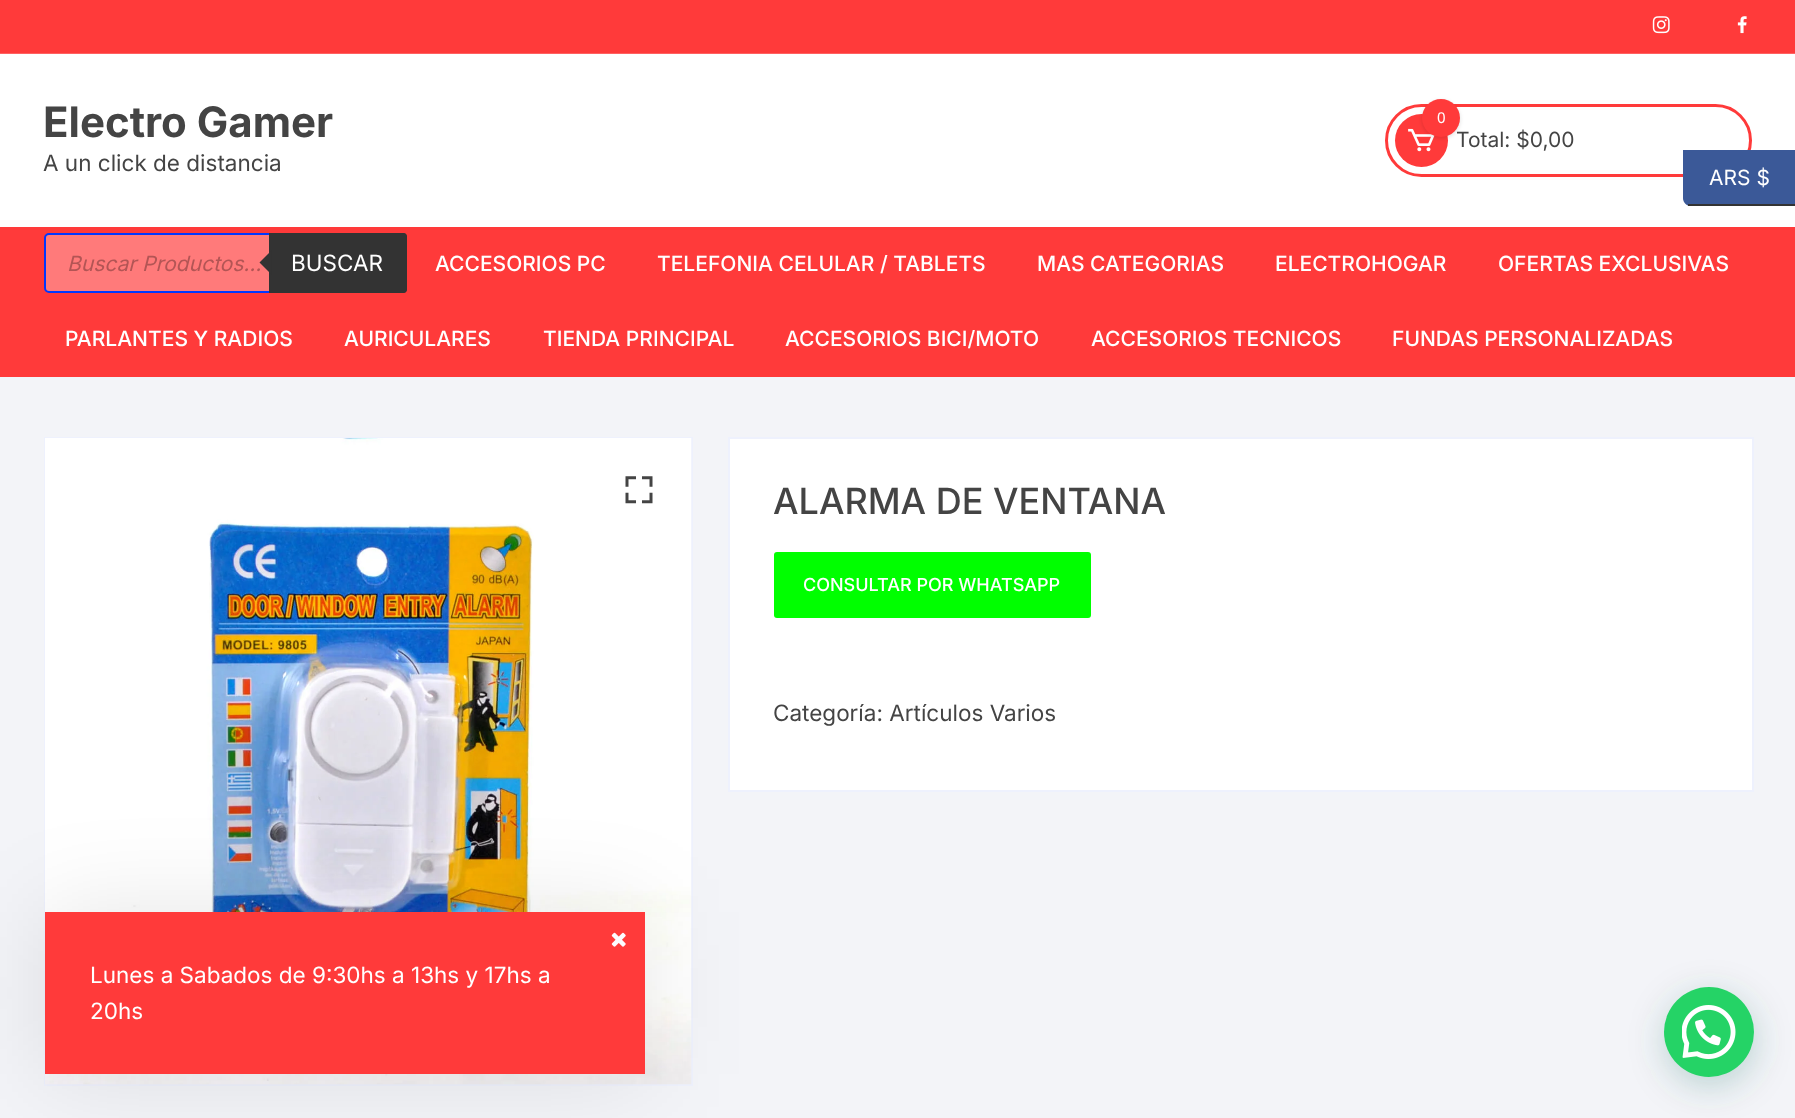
<svg xmlns="http://www.w3.org/2000/svg" width="1795" height="1118" viewBox="0 0 1795 1118">
  <defs>
    <filter id="blur1" x="-50%" y="-200%" width="200%" height="500%"><feGaussianBlur stdDeviation="2"/></filter>
    <filter id="blur2" x="-50%" y="-200%" width="200%" height="500%"><feGaussianBlur stdDeviation="49"/></filter>
    <filter id="blur3" x="-50%" y="-200%" width="200%" height="500%"><feGaussianBlur stdDeviation="18"/></filter>
  </defs>
  <rect width="100%" height="100%" fill="#f3f4f8"/>
  <rect x="0" y="54" width="1795" height="173" fill="#ffffff"/>
  <rect x="0" y="0" width="1795" height="53" fill="#ff3a3a"/>
  <rect x="0" y="53" width="1795" height="1" fill="#ff6161"/>
  <image x="1652" y="16" width="18" height="18" href="img1.png"/>
  <image x="1737" y="16" width="10" height="18" href="img2.png"/>
  <text x="43" y="137" font-family="Inter" font-size="42" font-weight="bold" fill="#444444">Electro Gamer</text>
  <text x="43" y="171" font-family="Inter" font-size="22.5" fill="#444444">A un click de distancia</text>
  <rect x="1386.5" y="105.5" width="364" height="70" rx="35" fill="none" stroke="#ff3a3a" stroke-width="3"/>
  <circle cx="1421.5" cy="140.5" r="26.5" fill="#ff3a3a"/>
  <image x="1408" y="128" width="27" height="24" href="img3.png"/>
  <rect x="1422" y="101" width="38" height="37" rx="18.5" fill="#000000" fill-opacity="0.13" filter="url(#blur1)"/>
  <text x="1456" y="147" font-family="Inter" font-size="21" fill="#444444">Total: $0,00</text>
  <circle cx="1441" cy="118" r="19" fill="#ff3a3a"/>
  <text x="1437" y="123" font-family="Noto Sans" font-size="15" fill="#ffffff">0</text>
  <rect x="0" y="227" width="1795" height="150" fill="#ff3a3a"/>
  <rect x="45" y="234" width="361" height="58" rx="4" fill="#ff7a7a" stroke="#0037ff" stroke-width="2"/>
  <text x="67" y="271" font-family="Inter" font-size="21" font-style="italic" fill="#b35555">Buscar Productos...</text>
  <path d="M269 233H404C405.5 233 407 234.5 407 236V290C407 291.5 405.5 293 404 293H269Z" fill="#333333"/>
  <path d="M271.5 250.5V274.5L259.5 262.5Z" fill="#333333"/>
  <text x="291" y="271" font-family="Inter" font-size="22.5" fill="#ffffff">BUSCAR</text>
  <text x="435" y="271" font-family="Inter" font-size="21" font-weight="500" fill="#ffffff">ACCESORIOS PC</text>
  <text x="657" y="271" font-family="Inter" font-size="21" font-weight="500" fill="#ffffff">TELEFONIA CELULAR / TABLETS</text>
  <text x="1037" y="271" font-family="Inter" font-size="21" font-weight="500" fill="#ffffff">MAS CATEGORIAS</text>
  <text x="1275" y="271" font-family="Inter" font-size="21" font-weight="500" fill="#ffffff">ELECTROHOGAR</text>
  <text x="1498" y="271" font-family="Inter" font-size="21" font-weight="500" fill="#ffffff">OFERTAS EXCLUSIVAS</text>
  <text x="65" y="346" font-family="Inter" font-size="21" font-weight="500" fill="#ffffff">PARLANTES Y RADIOS</text>
  <text x="344" y="346" font-family="Inter" font-size="21" font-weight="500" fill="#ffffff">AURICULARES</text>
  <text x="543" y="346" font-family="Inter" font-size="21" font-weight="500" fill="#ffffff">TIENDA PRINCIPAL</text>
  <text x="785" y="346" font-family="Inter" font-size="21" font-weight="500" fill="#ffffff">ACCESORIOS BICI/MOTO</text>
  <text x="1091" y="346" font-family="Inter" font-size="21" font-weight="500" fill="#ffffff">ACCESORIOS TECNICOS</text>
  <text x="1392" y="346" font-family="Inter" font-size="21" font-weight="500" fill="#ffffff">FUNDAS PERSONALIZADAS</text>
  <rect x="45" y="438" width="647" height="647" fill="none" stroke="#eef1fd" stroke-width="2"/>
  <image x="45" y="438" width="647" height="647" href="img4.png"/>
  <image x="625" y="476" width="28" height="28" href="img5.png"/>
  <rect x="729" y="438" width="1024" height="353" fill="#ffffff" stroke="#eef1fd" stroke-width="2"/>
  <text x="773" y="514" font-family="Inter" font-size="36" font-weight="500" fill="#444444">ALARMA DE VENTANA</text>
  <rect x="774" y="552" width="317" height="66" rx="3" fill="#00ff00"/>
  <text x="803" y="591" font-family="Inter" font-size="18" font-weight="500" fill="#ffffff">CONSULTAR POR WHATSAPP</text>
  <text x="773" y="721" font-family="Inter" font-size="22.5" fill="#444444">Categoría: Artículos Varios</text>
  <path d="M1683 150H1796V206H1691C1686.5 206 1683 202.5 1683 198Z" fill="#3b5998"/>
  <rect x="1688" y="204" width="107" height="2" fill="#333333"/>
  <text x="1709" y="185" font-family="Inter" font-size="21" fill="#ffffff">ARS $</text>
  <rect x="45" y="912" width="600" height="162" fill="#000000" fill-opacity="0.1" filter="url(#blur2)"/>
  <rect x="45" y="912" width="600" height="162" fill="#ff3a3a"/>
  <image x="611" y="932" width="15" height="15" href="img6.png"/>
  <text x="90" y="983" font-family="Inter" font-size="22.5" fill="#ffffff">Lunes a Sabados de 9:30hs a 13hs y 17hs a</text>
  <text x="90" y="1019" font-family="Inter" font-size="22.5" fill="#ffffff">20hs</text>
  <rect x="1665" y="996" width="90" height="90" rx="45" fill="#075e54" fill-opacity="0.24" filter="url(#blur3)"/>
  <circle cx="1709" cy="1032" r="45" fill="#25d366"/>
  <image x="1682" y="1005" width="54" height="54" href="img7.png"/>
</svg>
